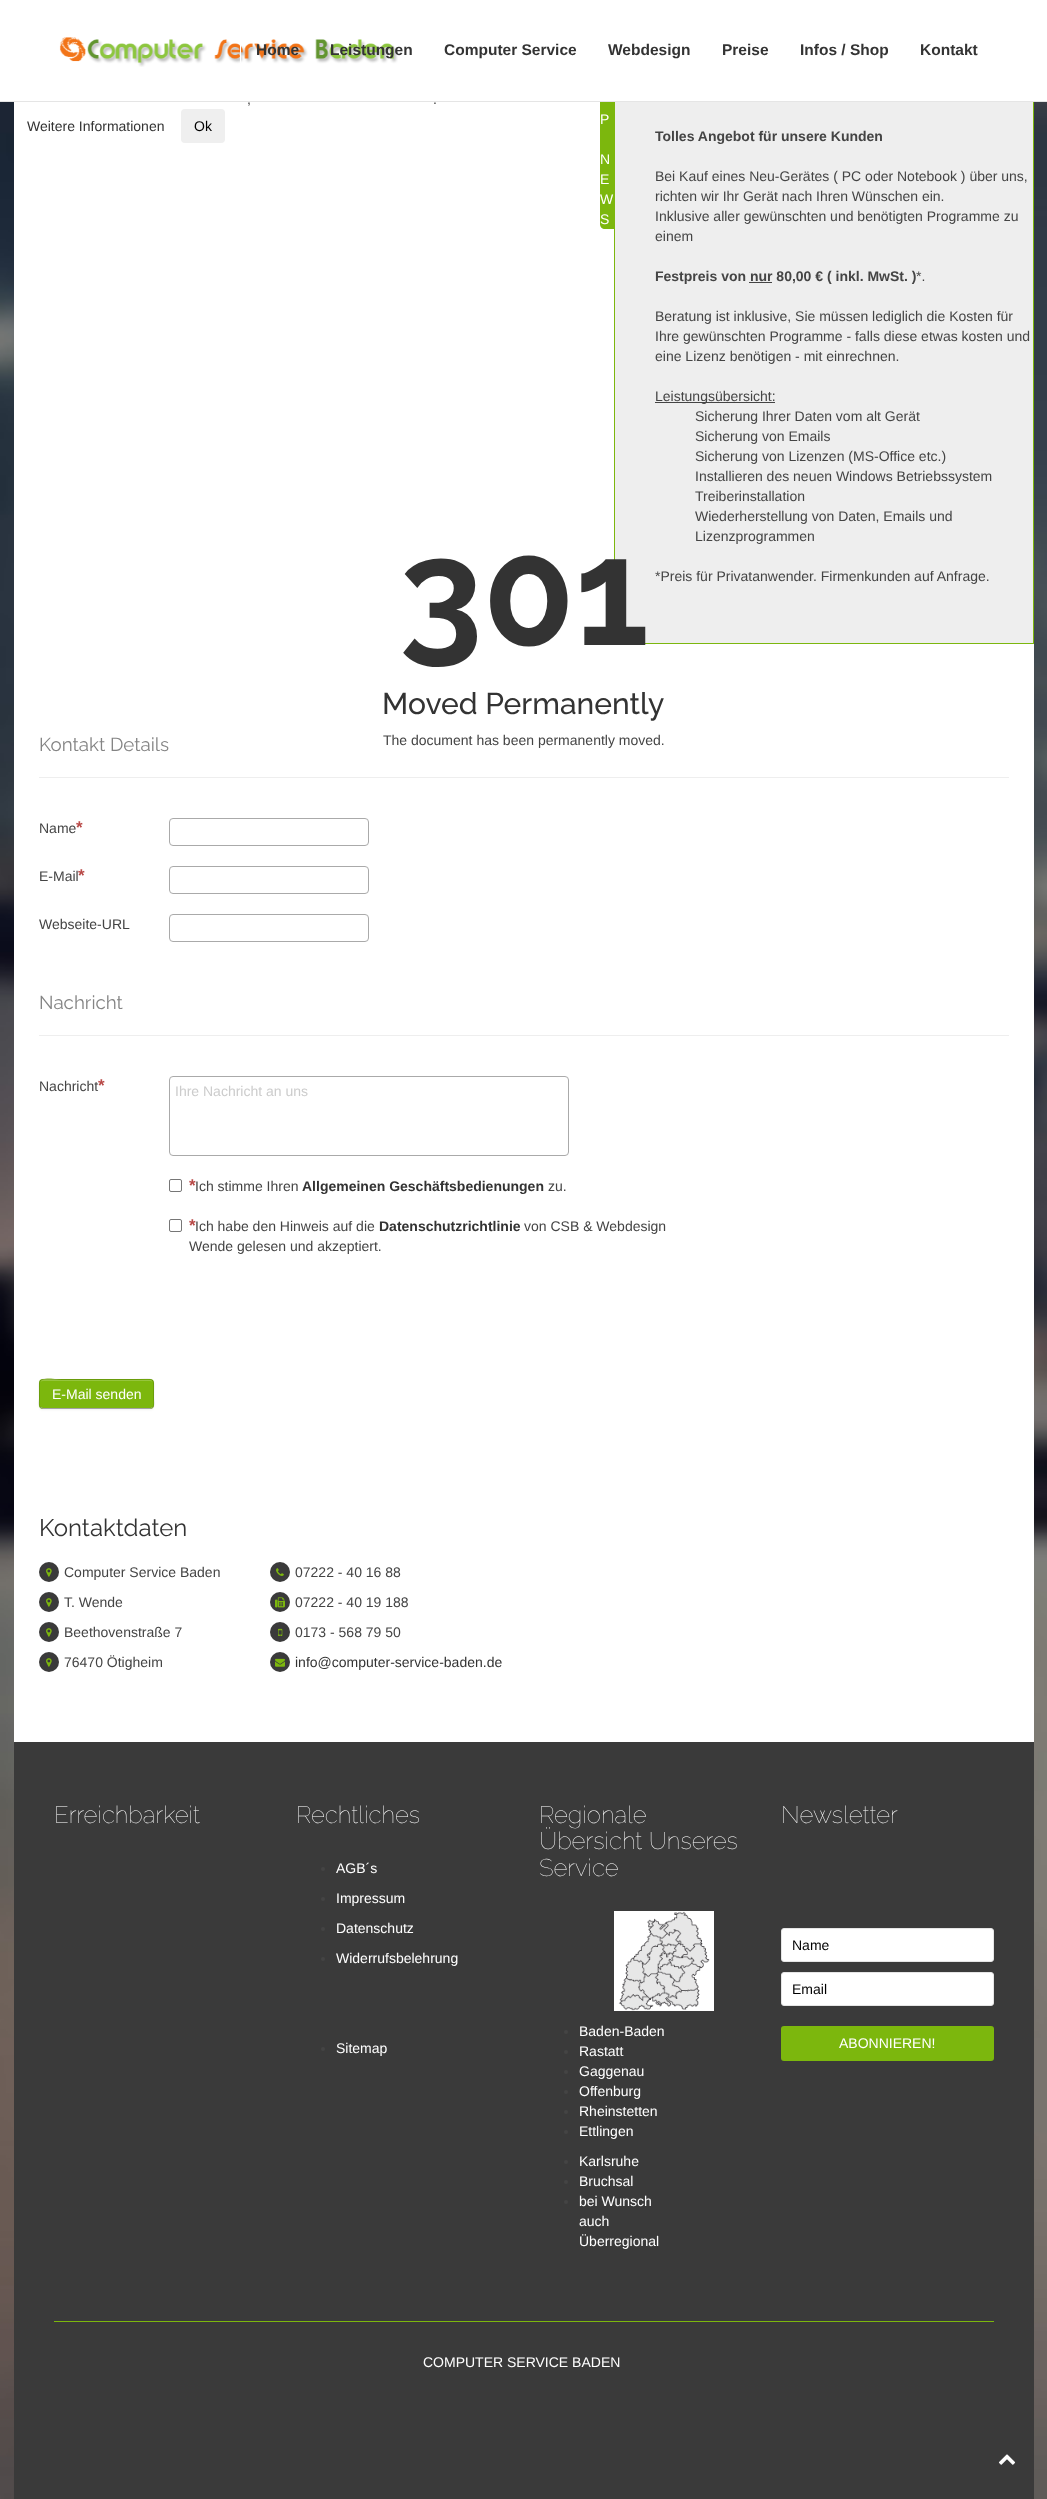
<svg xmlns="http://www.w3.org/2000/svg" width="1047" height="2499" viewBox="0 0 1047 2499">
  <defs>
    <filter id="blur1" x="-50%" y="-200%" width="200%" height="500%"><feGaussianBlur stdDeviation="1"/></filter>
  </defs>
  <rect width="100%" height="100%" fill="#ffffff"/>
  <image x="0" y="102" width="1047" height="2397" href="img1.png"/>
  <rect x="14" y="102" width="1020" height="1640" fill="#ffffff"/>
  <path d="M605 69H614V229H605C602 229 600 227 600 224V74C600 71 602 69 605 69Z" fill="#7cb70d"/>
  <rect x="615" y="102" width="418" height="541" fill="#eeeeee"/>
  <rect x="614.5" y="69.5" width="419" height="574" fill="none" stroke="#7cb70d"/>
  <rect x="600" y="69" width="434" height="32" fill="#ffffff"/>
  <rect x="0" y="101" width="1047" height="1" fill="#e5e5e5"/>
  <image x="59" y="37" width="339" height="30" href="img2.png"/>
  <rect x="240" y="45" width="1" height="18" fill="#ffffff"/>
  <text x="256" y="55" font-family="Liberation Sans" font-size="15.5" font-weight="bold" fill="#333333">Home</text>
  <text x="330" y="55" font-family="Liberation Sans" font-size="15.5" font-weight="bold" fill="#333333">Leistungen</text>
  <text x="444" y="55" font-family="Liberation Sans" font-size="15.5" font-weight="bold" fill="#333333">Computer Service</text>
  <text x="608" y="55" font-family="Liberation Sans" font-size="15.5" font-weight="bold" fill="#333333">Webdesign</text>
  <text x="722" y="55" font-family="Liberation Sans" font-size="15.5" font-weight="bold" fill="#333333">Preise</text>
  <text x="800" y="55" font-family="Liberation Sans" font-size="15.5" font-weight="bold" fill="#333333">Infos / Shop</text>
  <text x="920" y="55" font-family="Liberation Sans" font-size="15.5" font-weight="bold" fill="#333333">Kontakt</text>
  <text x="247" y="104" font-family="Liberation Sans" font-size="14" fill="#444444">,</text>
  <text x="433" y="104" font-family="Liberation Sans" font-size="14" fill="#444444">.</text>
  <text x="27" y="131" font-family="Liberation Sans" font-size="14" fill="#333333">Weitere Informationen</text>
  <rect x="181" y="109" width="44" height="34" rx="4" fill="#efefef"/>
  <text x="194" y="131" font-family="Liberation Sans" font-size="14" fill="#000000">Ok</text>
  <text x="600" y="124" font-family="Liberation Sans" font-size="14" fill="#ffffff">P</text>
  <text x="600" y="164" font-family="Liberation Sans" font-size="14" fill="#ffffff">N</text>
  <text x="600" y="184" font-family="Liberation Sans" font-size="14" fill="#ffffff">E</text>
  <text x="600" y="204" font-family="Liberation Sans" font-size="14" fill="#ffffff">W</text>
  <text x="600" y="224" font-family="Liberation Sans" font-size="14" fill="#ffffff">S</text>
  <text x="655" y="141" font-family="Liberation Sans" font-size="14" font-weight="bold" fill="#444444">Tolles Angebot für unsere Kunden</text>
  <text x="655" y="181" font-family="Liberation Sans" font-size="14" fill="#444444">Bei Kauf eines Neu-Gerätes ( PC oder Notebook ) über uns,</text>
  <text x="655" y="201" font-family="Liberation Sans" font-size="14" fill="#444444">richten wir Ihr Gerät nach Ihren Wünschen ein.</text>
  <text x="655" y="221" font-family="Liberation Sans" font-size="14" fill="#444444">Inklusive aller gewünschten und benötigten Programme zu</text>
  <text x="655" y="241" font-family="Liberation Sans" font-size="14" fill="#444444">einem</text>
  <text x="655" y="281" font-family="Liberation Sans" font-size="14" font-weight="bold" fill="#444444">Festpreis von nur 80,00 € ( inkl. MwSt. )</text>
  <rect x="749" y="282" width="23" height="1" fill="#444444"/>
  <text x="916" y="281" font-family="Liberation Sans" font-size="14" fill="#444444">*.</text>
  <text x="655" y="321" font-family="Liberation Sans" font-size="14" fill="#444444">Beratung ist inklusive, Sie müssen lediglich die Kosten für</text>
  <text x="655" y="341" font-family="Liberation Sans" font-size="14" fill="#444444">Ihre gewünschten Programme - falls diese etwas kosten und</text>
  <text x="655" y="361" font-family="Liberation Sans" font-size="14" fill="#444444">eine Lizenz benötigen - mit einrechnen.</text>
  <rect x="655" y="402" width="120" height="1" fill="#444444"/>
  <text x="655" y="401" font-family="Liberation Sans" font-size="14" fill="#444444">Leistungsübersicht:</text>
  <text x="695" y="421" font-family="Liberation Sans" font-size="14" fill="#444444">Sicherung Ihrer Daten vom alt Gerät</text>
  <text x="695" y="441" font-family="Liberation Sans" font-size="14" fill="#444444">Sicherung von Emails</text>
  <text x="695" y="461" font-family="Liberation Sans" font-size="14" fill="#444444">Sicherung von Lizenzen (MS-Office etc.)</text>
  <text x="695" y="481" font-family="Liberation Sans" font-size="14" fill="#444444">Installieren des neuen Windows Betriebssystem</text>
  <text x="695" y="501" font-family="Liberation Sans" font-size="14" fill="#444444">Treiberinstallation</text>
  <text x="695" y="521" font-family="Liberation Sans" font-size="14" fill="#444444">Wiederherstellung von Daten, Emails und</text>
  <text x="695" y="541" font-family="Liberation Sans" font-size="14" fill="#444444">Lizenzprogrammen</text>
  <text x="655" y="581" font-family="Liberation Sans" font-size="14" fill="#444444">*Preis für Privatanwender. Firmenkunden auf Anfrage.</text>
  <text x="399" y="645" font-family="Raleway" font-size="150" font-weight="bold" fill="#333333">301</text>
  <text x="382" y="714" font-family="Raleway" font-size="30" font-weight="500" fill="#333333">Moved Permanently</text>
  <text x="383" y="745" font-family="Liberation Sans" font-size="14" fill="#444444">The document has been permanently moved.</text>
  <text x="39" y="751" font-family="Raleway" font-size="18.75" fill="#848484">Kontakt Details</text>
  <rect x="39" y="777" width="970" height="1" fill="#eeeeee"/>
  <text x="39" y="833" font-family="Liberation Sans" font-size="14" fill="#444444">Name</text>
  <text x="76" y="833" font-family="Liberation Sans" font-size="17" font-weight="bold" fill="#b94a48">*</text>
  <rect x="169.5" y="818.5" width="199" height="27" rx="3.5" fill="none" stroke="#aaaaaa"/>
  <text x="39" y="881" font-family="Liberation Sans" font-size="14" fill="#444444">E-Mail</text>
  <text x="78" y="881" font-family="Liberation Sans" font-size="17" font-weight="bold" fill="#b94a48">*</text>
  <rect x="169.5" y="866.5" width="199" height="27" rx="3.5" fill="none" stroke="#aaaaaa"/>
  <text x="39" y="929" font-family="Liberation Sans" font-size="14" fill="#444444">Webseite-URL</text>
  <rect x="169.5" y="914.5" width="199" height="27" rx="3.5" fill="none" stroke="#aaaaaa"/>
  <text x="39" y="1009" font-family="Raleway" font-size="18.75" fill="#848484">Nachricht</text>
  <rect x="39" y="1035" width="970" height="1" fill="#eeeeee"/>
  <text x="39" y="1091" font-family="Liberation Sans" font-size="14" fill="#444444">Nachricht</text>
  <text x="98" y="1091" font-family="Liberation Sans" font-size="17" font-weight="bold" fill="#b94a48">*</text>
  <rect x="169.5" y="1076.5" width="399" height="79" rx="3.5" fill="none" stroke="#aaaaaa"/>
  <text x="175" y="1096" font-family="Liberation Sans" font-size="14" fill="#cccccc">Ihre Nachricht an uns</text>
  <rect x="169.5" y="1179.5" width="12" height="12" rx="1.5" fill="none" stroke="#767676"/>
  <text x="189" y="1191" font-family="Liberation Sans" font-size="17" font-weight="bold" fill="#b94a48">*</text>
  <text x="195" y="1191" font-family="Liberation Sans" font-size="14" fill="#444444">Ich stimme Ihren</text>
  <text x="302" y="1191" font-family="Liberation Sans" font-size="14" font-weight="bold" fill="#333333">Allgemeinen Geschäftsbedienungen</text>
  <text x="548" y="1191" font-family="Liberation Sans" font-size="14" fill="#444444">zu.</text>
  <rect x="169.5" y="1219.5" width="12" height="12" rx="1.5" fill="none" stroke="#767676"/>
  <text x="189" y="1231" font-family="Liberation Sans" font-size="17" font-weight="bold" fill="#b94a48">*</text>
  <text x="195" y="1231" font-family="Liberation Sans" font-size="14" fill="#444444">Ich habe den Hinweis auf die</text>
  <text x="379" y="1231" font-family="Liberation Sans" font-size="14" font-weight="bold" fill="#333333">Datenschutzrichtlinie</text>
  <text x="524" y="1231" font-family="Liberation Sans" font-size="14" fill="#444444">von CSB &amp; Webdesign</text>
  <text x="189" y="1251" font-family="Liberation Sans" font-size="14" fill="#444444">Wende gelesen und akzeptiert.</text>
  <rect x="39" y="1380" width="115" height="30" rx="4" fill="#000000" fill-opacity="0.05" filter="url(#blur1)"/>
  <rect x="39" y="1379" width="115" height="30" rx="4" fill="#7cb70d"/>
  <path d="M43 1381H150C152 1381 153 1382 153 1384C153 1382 152 1380 150 1380H61C59 1380 40 1375 40 1384C40 1382 41 1381 43 1381Z" fill="#96c53d"/>
  <path d="M152.5 1407.5L150.5 1408.5H61H43L40.5 1407.5" fill="none" stroke="#a2a2a2"/>
  <path d="M40.5 1407.5C38 1405 39.5 1400.5 39.5 1397.5C39.5 1375 36 1379.5 61 1379.5H132C157 1379.5 153.5 1375 153.5 1397.5C153.5 1400.5 155 1405 152.5 1407.5" fill="none" stroke="#000000" stroke-opacity="0.15"/>
  <text x="52" y="1399" font-family="Liberation Sans" font-size="14" fill="#ffffff">E-Mail senden</text>
  <text x="39" y="1536" font-family="Raleway" font-size="24" fill="#333333">Kontaktdaten</text>
  <circle cx="49" cy="1572" r="10" fill="#3a3a3a"/>
  <image x="46" y="1568" width="6" height="9" href="img3.png"/>
  <text x="64" y="1577" font-family="Liberation Sans" font-size="14" fill="#444444">Computer Service Baden</text>
  <circle cx="49" cy="1602" r="10" fill="#3a3a3a"/>
  <image x="46" y="1598" width="6" height="9" href="img3.png"/>
  <text x="64" y="1607" font-family="Liberation Sans" font-size="14" fill="#444444">T. Wende</text>
  <circle cx="49" cy="1632" r="10" fill="#3a3a3a"/>
  <image x="46" y="1628" width="6" height="9" href="img3.png"/>
  <text x="64" y="1637" font-family="Liberation Sans" font-size="14" fill="#444444">Beethovenstraße 7</text>
  <circle cx="49" cy="1662" r="10" fill="#3a3a3a"/>
  <image x="46" y="1658" width="6" height="9" href="img3.png"/>
  <text x="64" y="1667" font-family="Liberation Sans" font-size="14" fill="#444444">76470 Ötigheim</text>
  <circle cx="280" cy="1572" r="10" fill="#3a3a3a"/>
  <image x="276" y="1568" width="8" height="8" href="img4.png"/>
  <text x="295" y="1577" font-family="Liberation Sans" font-size="14" fill="#444444">07222 - 40 16 88</text>
  <circle cx="280" cy="1602" r="10" fill="#3a3a3a"/>
  <image x="275" y="1597" width="10" height="11" href="img5.png"/>
  <text x="295" y="1607" font-family="Liberation Sans" font-size="14" fill="#444444">07222 - 40 19 188</text>
  <circle cx="280" cy="1632" r="10" fill="#3a3a3a"/>
  <image x="278" y="1628" width="5" height="8" href="img6.png"/>
  <text x="295" y="1637" font-family="Liberation Sans" font-size="14" fill="#444444">0173 - 568 79 50</text>
  <circle cx="280" cy="1662" r="10" fill="#3a3a3a"/>
  <image x="275" y="1658" width="10" height="9" href="img7.png"/>
  <text x="295" y="1667" font-family="Liberation Sans" font-size="14" fill="#333333">info@computer-service-baden.de</text>
  <rect x="14" y="1742" width="1020" height="757" fill="#3a3a3a"/>
  <text x="54" y="1823" font-family="Raleway" font-size="24" font-weight="100" fill="#ffffff">Erreichbarkeit</text>
  <text x="296" y="1823" font-family="Raleway" font-size="24" font-weight="100" fill="#ffffff">Rechtliches</text>
  <circle cx="323" cy="1869" r="2" fill="#444444"/>
  <text x="336" y="1873" font-family="Liberation Sans" font-size="14" fill="#ffffff">AGB´s</text>
  <circle cx="323" cy="1899" r="2" fill="#444444"/>
  <text x="336" y="1903" font-family="Liberation Sans" font-size="14" fill="#ffffff">Impressum</text>
  <circle cx="323" cy="1929" r="2" fill="#444444"/>
  <text x="336" y="1933" font-family="Liberation Sans" font-size="14" fill="#ffffff">Datenschutz</text>
  <circle cx="323" cy="1959" r="2" fill="#444444"/>
  <text x="336" y="1963" font-family="Liberation Sans" font-size="14" fill="#ffffff">Widerrufsbelehrung</text>
  <circle cx="323" cy="2049" r="2" fill="#444444"/>
  <text x="336" y="2053" font-family="Liberation Sans" font-size="14" fill="#ffffff">Sitemap</text>
  <text x="539" y="1823" font-family="Raleway" font-size="24" font-weight="100" fill="#ffffff">Regionale</text>
  <text x="539" y="1849" font-family="Raleway" font-size="24" font-weight="100" fill="#ffffff">Übersicht Unseres</text>
  <text x="539" y="1876" font-family="Raleway" font-size="24" font-weight="100" fill="#ffffff">Service</text>
  <image x="614" y="1911" width="100" height="100" href="img8.png"/>
  <circle cx="566" cy="2032" r="2" fill="#444444"/>
  <text x="579" y="2036" font-family="Liberation Sans" font-size="14" fill="#ffffff">Baden-Baden</text>
  <circle cx="566" cy="2052" r="2" fill="#444444"/>
  <text x="579" y="2056" font-family="Liberation Sans" font-size="14" fill="#ffffff">Rastatt</text>
  <circle cx="566" cy="2072" r="2" fill="#444444"/>
  <text x="579" y="2076" font-family="Liberation Sans" font-size="14" fill="#ffffff">Gaggenau</text>
  <circle cx="566" cy="2092" r="2" fill="#444444"/>
  <text x="579" y="2096" font-family="Liberation Sans" font-size="14" fill="#ffffff">Offenburg</text>
  <circle cx="566" cy="2112" r="2" fill="#444444"/>
  <text x="579" y="2116" font-family="Liberation Sans" font-size="14" fill="#ffffff">Rheinstetten</text>
  <circle cx="566" cy="2132" r="2" fill="#444444"/>
  <text x="579" y="2136" font-family="Liberation Sans" font-size="14" fill="#ffffff">Ettlingen</text>
  <circle cx="566" cy="2162" r="2" fill="#444444"/>
  <text x="579" y="2166" font-family="Liberation Sans" font-size="14" fill="#ffffff">Karlsruhe</text>
  <circle cx="566" cy="2182" r="2" fill="#444444"/>
  <text x="579" y="2186" font-family="Liberation Sans" font-size="14" fill="#ffffff">Bruchsal</text>
  <circle cx="566" cy="2202" r="2" fill="#444444"/>
  <text x="579" y="2206" font-family="Liberation Sans" font-size="14" fill="#ffffff">bei Wunsch</text>
  <text x="579" y="2226" font-family="Liberation Sans" font-size="14" fill="#ffffff">auch</text>
  <text x="579" y="2246" font-family="Liberation Sans" font-size="14" fill="#ffffff">Überregional</text>
  <text x="781" y="1823" font-family="Raleway" font-size="24" font-weight="100" fill="#ffffff">Newsletter</text>
  <rect x="781.5" y="1928.5" width="212" height="33" rx="2.5" fill="#ffffff" stroke="#e5e5e5"/>
  <text x="792" y="1950" font-family="Liberation Sans" font-size="14" fill="#000000">Name</text>
  <rect x="781.5" y="1972.5" width="212" height="33" rx="2.5" fill="#ffffff" stroke="#e5e5e5"/>
  <text x="792" y="1994" font-family="Liberation Sans" font-size="14" fill="#000000">Email</text>
  <rect x="781" y="2026" width="213" height="35" rx="3" fill="#7cb70d"/>
  <text x="839" y="2048" font-family="Liberation Sans" font-size="14" fill="#ffffff">ABONNIEREN!</text>
  <rect x="54" y="2321" width="940" height="1" fill="#7cb70d"/>
  <text x="423" y="2367" font-family="Liberation Sans" font-size="14" fill="#ffffff">COMPUTER SERVICE BADEN</text>
  <image x="998" y="2454" width="18" height="11" href="img9.png"/>
</svg>
